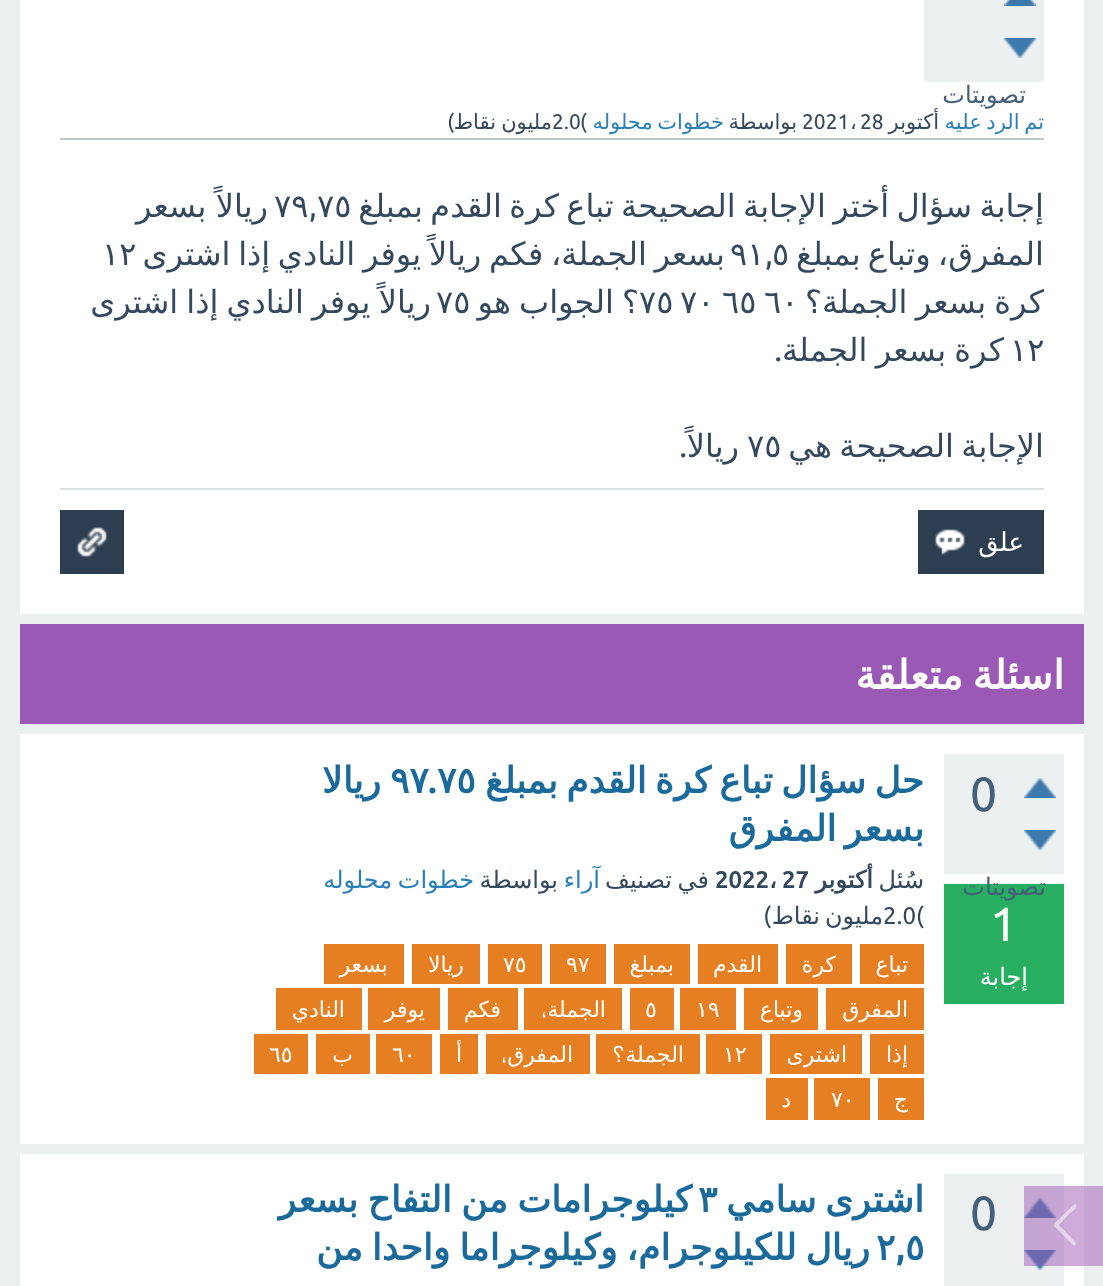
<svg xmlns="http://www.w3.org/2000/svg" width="1103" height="1286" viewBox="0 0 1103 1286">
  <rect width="100%" height="100%" fill="#ecf0f1"/>
  <rect x="20" y="0" width="1064" height="614" fill="#ffffff"/>
  <rect x="924" y="0" width="120" height="82" fill="#ecf0f1"/>
  <image x="1004" y="0" width="32" height="6" href="img1.png"/>
  <image x="1004" y="38" width="32" height="20" href="img2.png"/>
  <text x="1026" y="103" font-family="DejaVu Sans" font-size="24" direction="rtl" fill="#445f7a">تصويتات</text>
  <rect x="60" y="138" width="984" height="2" fill="#bdc3c7"/>
  <text x="1044" y="129" word-spacing="-2" font-family="DejaVu Sans" font-size="21" direction="rtl" fill="#2980b9">تم الرد عليه</text>
  <text x="939" y="129" font-family="DejaVu Sans" font-size="21" direction="rtl" fill="#34495e">أكتوبر</text>
  <text x="860" y="129" font-family="Ubuntu" font-size="21" fill="#34495e">28</text>
  <text x="850" y="129" font-family="DejaVu Sans" font-size="21" fill="#34495e">،</text>
  <text x="802" y="129" font-family="Ubuntu" font-size="21" fill="#34495e">2021</text>
  <text x="797" y="129" font-family="DejaVu Sans" font-size="21" direction="rtl" fill="#34495e">بواسطة</text>
  <text x="724" y="129" word-spacing="-2" font-family="DejaVu Sans" font-size="21" direction="rtl" fill="#2980b9">خطوات محلوله</text>
  <text x="580" y="129" font-family="Ubuntu" font-size="21" fill="#34495e">(</text>
  <text x="552" y="129" font-family="Ubuntu" font-size="21" fill="#34495e">2.0</text>
  <text x="552" y="129" font-family="DejaVu Sans" font-size="21" direction="rtl" fill="#34495e">مليون</text>
  <text x="496" y="129" font-family="DejaVu Sans" font-size="21" direction="rtl" fill="#34495e">نقاط</text>
  <text x="454" y="129" font-family="Ubuntu" font-size="21" direction="rtl" fill="#34495e">)</text>
  <text x="1044" y="217" word-spacing="-2.75" font-family="DejaVu Sans" font-size="32" direction="rtl" fill="#34495e">إجابة سؤال أختر الإجابة الصحيحة تباع كرة القدم بمبلغ</text>
  <text x="317" y="217" font-family="DejaVu Sans" font-size="32" fill="#34495e">٧٥</text>
  <text x="309" y="217" font-family="Ubuntu" font-size="32" fill="#34495e">,</text>
  <text x="274" y="217" font-family="DejaVu Sans" font-size="32" fill="#34495e">٧٩</text>
  <text x="268" y="217" word-spacing="-1" font-family="DejaVu Sans" font-size="32" direction="rtl" fill="#34495e">ريالاً بسعر</text>
  <text x="1044" y="265" word-spacing="-3" font-family="DejaVu Sans" font-size="32" direction="rtl" fill="#34495e">المفرق، وتباع بمبلغ</text>
  <text x="772" y="265" font-family="DejaVu Sans" font-size="32" fill="#34495e">٥</text>
  <text x="765" y="265" font-family="Ubuntu" font-size="32" fill="#34495e">,</text>
  <text x="725" y="265" word-spacing="-2.5" font-family="DejaVu Sans" font-size="32" direction="rtl" fill="#34495e">بسعر الجملة، فكم ريالاً يوفر النادي إذا اشترى</text>
  <text x="730" y="265" font-family="DejaVu Sans" font-size="32" fill="#34495e">٩١</text>
  <text x="102" y="265" font-family="DejaVu Sans" font-size="32" fill="#34495e">١٢</text>
  <text x="1044" y="313" word-spacing="-2" font-family="DejaVu Sans" font-size="32" direction="rtl" fill="#34495e">كرة بسعر الجملة؟</text>
  <text x="764" y="313" font-family="DejaVu Sans" font-size="32" fill="#34495e">٦٠</text>
  <text x="722" y="313" font-family="DejaVu Sans" font-size="32" fill="#34495e">٦٥</text>
  <text x="680" y="313" font-family="DejaVu Sans" font-size="32" fill="#34495e">٧٠</text>
  <text x="639" y="313" word-spacing="-2" font-family="DejaVu Sans" font-size="32" direction="rtl" fill="#34495e">؟ الجواب هو</text>
  <text x="639" y="313" font-family="DejaVu Sans" font-size="32" fill="#34495e">٧٥</text>
  <text x="431" y="313" word-spacing="-2" font-family="DejaVu Sans" font-size="32" direction="rtl" fill="#34495e">ريالاً يوفر النادي إذا اشترى</text>
  <text x="436" y="313" font-family="DejaVu Sans" font-size="32" fill="#34495e">٧٥</text>
  <text x="1010" y="361" font-family="DejaVu Sans" font-size="32" fill="#34495e">١٢</text>
  <text x="1004" y="361" word-spacing="-2" font-family="DejaVu Sans" font-size="32" direction="rtl" fill="#34495e">كرة بسعر الجملة</text>
  <text x="782" y="361" font-family="Ubuntu" font-size="32" direction="rtl" fill="#34495e">.</text>
  <text x="1044" y="457" word-spacing="-2.75" font-family="DejaVu Sans" font-size="32" direction="rtl" fill="#34495e">الإجابة الصحيحة هي</text>
  <text x="747" y="457" font-family="DejaVu Sans" font-size="32" fill="#34495e">٧٥</text>
  <text x="687" y="457" font-family="Ubuntu" font-size="32" direction="rtl" fill="#34495e">.</text>
  <text x="739" y="457" font-family="DejaVu Sans" font-size="32" direction="rtl" fill="#34495e">ريالاً</text>
  <rect x="60" y="488" width="984" height="2" fill="#dee1e3"/>
  <rect x="918" y="510" width="126" height="64" fill="#2c3e50"/>
  <image x="934" y="529" width="31" height="26" href="img3.png"/>
  <text x="1024" y="551" font-family="DejaVu Sans" font-size="26" direction="rtl" fill="#ffffff">علق</text>
  <rect x="60" y="510" width="64" height="64" fill="#2c3e50"/>
  <image x="76" y="527" width="31" height="31" href="img4.png"/>
  <rect x="20" y="624" width="1064" height="100" fill="#9b59b6"/>
  <text x="1064" y="689" word-spacing="-3" font-family="DejaVu Sans" font-size="40" font-weight="bold" direction="rtl" fill="#ffffff">اسئلة متعلقة</text>
  <rect x="20" y="734" width="1064" height="410" fill="#ffffff"/>
  <rect x="944" y="754" width="120" height="120" fill="#ecf0f1"/>
  <text x="970" y="811" font-family="Ubuntu" font-size="48" fill="#445f7a">0</text>
  <rect x="944" y="884" width="120" height="120" fill="#27ae60"/>
  <text x="1046" y="895" font-family="DejaVu Sans" font-size="24" direction="rtl" fill="#445f7a">تصويتات</text>
  <image x="1024" y="778" width="32" height="20" href="img5.png"/>
  <image x="1024" y="830" width="32" height="20" href="img2.png"/>
  <text x="990" y="941" font-family="Ubuntu" font-size="48" fill="#ffffff">1</text>
  <text x="1028" y="985" font-family="DejaVu Sans" font-size="24" direction="rtl" fill="#ffffff">إجابة</text>
  <text x="924" y="793" word-spacing="-3" font-family="DejaVu Sans" font-size="36" font-weight="bold" direction="rtl" fill="#1a6a9b">حل سؤال تباع كرة القدم بمبلغ</text>
  <text x="437" y="793" font-family="DejaVu Sans" font-size="36" font-weight="bold" fill="#1a6a9b">٧٥</text>
  <text x="428" y="793" font-family="Ubuntu" font-size="36" font-weight="bold" fill="#1a6a9b">.</text>
  <text x="390" y="793" font-family="DejaVu Sans" font-size="36" font-weight="bold" fill="#1a6a9b">٩٧</text>
  <text x="381" y="793" font-family="DejaVu Sans" font-size="36" font-weight="bold" direction="rtl" fill="#1a6a9b">ريالا</text>
  <text x="924" y="841" word-spacing="-3" font-family="DejaVu Sans" font-size="36" font-weight="bold" direction="rtl" fill="#1a6a9b">بسعر المفرق</text>
  <text x="924" y="888" font-family="DejaVu Sans" font-size="24" direction="rtl" fill="#34495e">سُئل</text>
  <text x="873" y="888" font-family="DejaVu Sans" font-size="24" font-weight="bold" direction="rtl" fill="#34495e">أكتوبر</text>
  <text x="782" y="888" font-family="Ubuntu" font-size="24" font-weight="bold" fill="#34495e">27</text>
  <text x="769" y="888" font-family="DejaVu Sans" font-size="24" font-weight="bold" fill="#34495e">،</text>
  <text x="715" y="888" font-family="Ubuntu" font-size="24" font-weight="bold" fill="#34495e">2022</text>
  <text x="709" y="888" word-spacing="-2" font-family="DejaVu Sans" font-size="24" direction="rtl" fill="#34495e">في تصنيف</text>
  <text x="600" y="888" font-family="DejaVu Sans" font-size="24" direction="rtl" fill="#2980b9">آراء</text>
  <text x="558" y="888" font-family="DejaVu Sans" font-size="24" direction="rtl" fill="#34495e">بواسطة</text>
  <text x="474" y="888" word-spacing="-2" font-family="DejaVu Sans" font-size="24" direction="rtl" fill="#2980b9">خطوات محلوله</text>
  <text x="916" y="924" font-family="Ubuntu" font-size="24" fill="#34495e">(</text>
  <text x="883" y="924" font-family="Ubuntu" font-size="24" fill="#34495e">2.0</text>
  <text x="883" y="924" font-family="DejaVu Sans" font-size="24" direction="rtl" fill="#34495e">مليون</text>
  <text x="820" y="924" font-family="DejaVu Sans" font-size="24" direction="rtl" fill="#34495e">نقاط</text>
  <text x="771" y="924" font-family="Ubuntu" font-size="24" direction="rtl" fill="#34495e">)</text>
  <rect x="860" y="944" width="64" height="40" fill="#e67e22"/>
  <text x="908" y="972" font-family="DejaVu Sans" font-size="22" direction="rtl" fill="#ffffff">تباع</text>
  <rect x="786" y="944" width="66" height="40" fill="#e67e22"/>
  <text x="836" y="972" font-family="DejaVu Sans" font-size="22" direction="rtl" fill="#ffffff">كرة</text>
  <rect x="698" y="944" width="80" height="40" fill="#e67e22"/>
  <text x="762" y="972" font-family="DejaVu Sans" font-size="22" direction="rtl" fill="#ffffff">القدم</text>
  <rect x="614" y="944" width="76" height="40" fill="#e67e22"/>
  <text x="674" y="972" font-family="DejaVu Sans" font-size="22" direction="rtl" fill="#ffffff">بمبلغ</text>
  <rect x="550" y="944" width="56" height="40" fill="#e67e22"/>
  <text x="566" y="972" font-family="DejaVu Sans" font-size="22" fill="#ffffff">٩٧</text>
  <rect x="488" y="944" width="54" height="40" fill="#e67e22"/>
  <text x="503" y="972" font-family="DejaVu Sans" font-size="22" fill="#ffffff">٧٥</text>
  <rect x="412" y="944" width="68" height="40" fill="#e67e22"/>
  <text x="464" y="972" font-family="DejaVu Sans" font-size="22" direction="rtl" fill="#ffffff">ريالا</text>
  <rect x="324" y="944" width="80" height="40" fill="#e67e22"/>
  <text x="388" y="972" font-family="DejaVu Sans" font-size="22" direction="rtl" fill="#ffffff">بسعر</text>
  <rect x="826" y="988" width="98" height="42" fill="#e67e22"/>
  <text x="908" y="1017" font-family="DejaVu Sans" font-size="22" direction="rtl" fill="#ffffff">المفرق</text>
  <rect x="744" y="988" width="74" height="42" fill="#e67e22"/>
  <text x="803" y="1017" font-family="DejaVu Sans" font-size="22" direction="rtl" fill="#ffffff">وتباع</text>
  <rect x="680" y="988" width="56" height="42" fill="#e67e22"/>
  <text x="696" y="1017" font-family="DejaVu Sans" font-size="22" fill="#ffffff">١٩</text>
  <rect x="630" y="988" width="44" height="42" fill="#e67e22"/>
  <text x="645" y="1017" font-family="DejaVu Sans" font-size="22" fill="#ffffff">٥</text>
  <rect x="524" y="988" width="98" height="42" fill="#e67e22"/>
  <text x="606" y="1017" font-family="DejaVu Sans" font-size="22" direction="rtl" fill="#ffffff">الجملة</text>
  <text x="547" y="1017" font-family="FreeSans" font-size="22" direction="rtl" fill="#ffffff">،</text>
  <rect x="448" y="988" width="70" height="42" fill="#e67e22"/>
  <text x="501" y="1017" font-family="DejaVu Sans" font-size="22" direction="rtl" fill="#ffffff">فكم</text>
  <rect x="368" y="988" width="72" height="42" fill="#e67e22"/>
  <text x="425" y="1017" font-family="DejaVu Sans" font-size="22" direction="rtl" fill="#ffffff">يوفر</text>
  <rect x="276" y="988" width="86" height="42" fill="#e67e22"/>
  <text x="345" y="1017" font-family="DejaVu Sans" font-size="22" direction="rtl" fill="#ffffff">النادي</text>
  <rect x="870" y="1034" width="54" height="40" fill="#e67e22"/>
  <text x="908" y="1062" font-family="DejaVu Sans" font-size="22" direction="rtl" fill="#ffffff">إذا</text>
  <rect x="770" y="1034" width="92" height="40" fill="#e67e22"/>
  <text x="847" y="1062" font-family="DejaVu Sans" font-size="22" direction="rtl" fill="#ffffff">اشترى</text>
  <rect x="706" y="1034" width="56" height="40" fill="#e67e22"/>
  <text x="723" y="1062" font-family="DejaVu Sans" font-size="22" fill="#ffffff">١٢</text>
  <rect x="596" y="1034" width="104" height="40" fill="#e67e22"/>
  <text x="684" y="1062" font-family="DejaVu Sans" font-size="22" direction="rtl" fill="#ffffff">الجملة</text>
  <text x="625" y="1062" font-family="FreeSans" font-size="22" direction="rtl" fill="#ffffff">؟</text>
  <rect x="486" y="1034" width="104" height="40" fill="#e67e22"/>
  <text x="573" y="1062" font-family="DejaVu Sans" font-size="22" direction="rtl" fill="#ffffff">المفرق</text>
  <text x="507" y="1062" font-family="FreeSans" font-size="22" direction="rtl" fill="#ffffff">،</text>
  <rect x="440" y="1034" width="38" height="40" fill="#e67e22"/>
  <text x="462" y="1062" font-family="DejaVu Sans" font-size="22" direction="rtl" fill="#ffffff">أ</text>
  <rect x="376" y="1034" width="56" height="40" fill="#e67e22"/>
  <text x="392" y="1062" font-family="DejaVu Sans" font-size="22" fill="#ffffff">٦٠</text>
  <rect x="316" y="1034" width="54" height="40" fill="#e67e22"/>
  <text x="353" y="1062" font-family="DejaVu Sans" font-size="22" direction="rtl" fill="#ffffff">ب</text>
  <rect x="254" y="1034" width="54" height="40" fill="#e67e22"/>
  <text x="269" y="1062" font-family="DejaVu Sans" font-size="22" fill="#ffffff">٦٥</text>
  <rect x="878" y="1078" width="46" height="42" fill="#e67e22"/>
  <text x="908" y="1107" font-family="DejaVu Sans" font-size="22" direction="rtl" fill="#ffffff">ج</text>
  <rect x="814" y="1078" width="56" height="42" fill="#e67e22"/>
  <text x="831" y="1107" font-family="DejaVu Sans" font-size="22" fill="#ffffff">٧٠</text>
  <rect x="766" y="1078" width="42" height="42" fill="#e67e22"/>
  <text x="791" y="1107" font-family="DejaVu Sans" font-size="22" direction="rtl" fill="#ffffff">د</text>
  <rect x="20" y="1154" width="1064" height="132" fill="#ffffff"/>
  <rect x="944" y="1174" width="120" height="112" fill="#ecf0f1"/>
  <image x="1024" y="1198" width="32" height="20" href="img5.png"/>
  <image x="1024" y="1250" width="32" height="20" href="img2.png"/>
  <text x="970" y="1230" font-family="Ubuntu" font-size="48" fill="#445f7a">0</text>
  <text x="924" y="1212" word-spacing="-3" font-family="DejaVu Sans" font-size="36" font-weight="bold" direction="rtl" fill="#1a6a9b">اشترى سامي</text>
  <text x="698" y="1212" font-family="DejaVu Sans" font-size="36" font-weight="bold" fill="#1a6a9b">٣</text>
  <text x="692" y="1212" word-spacing="-2" font-family="DejaVu Sans" font-size="36" font-weight="bold" direction="rtl" fill="#1a6a9b">كيلوجرامات من التفاح بسعر</text>
  <text x="905" y="1260" font-family="DejaVu Sans" font-size="36" font-weight="bold" fill="#1a6a9b">٥</text>
  <text x="896" y="1260" font-family="Ubuntu" font-size="36" font-weight="bold" fill="#1a6a9b">,</text>
  <text x="870" y="1260" word-spacing="-2.5" font-family="DejaVu Sans" font-size="36" font-weight="bold" direction="rtl" fill="#1a6a9b">ريال للكيلوجرام، وكيلوجراما واحدا من</text>
  <text x="876" y="1260" font-family="DejaVu Sans" font-size="36" font-weight="bold" fill="#1a6a9b">٢</text>
  <rect x="1024" y="1186" width="79" height="80" fill="#9b59b6" fill-opacity="0.5"/>
  <path d="M1076 1243V1244C1075 1249 1071 1242 1070 1242L1054 1226V1224C1056 1222 1074 1204 1075 1204C1080 1206 1071 1213 1070 1213L1059 1225Z" fill="#ffffff" fill-opacity="0.5"/>
</svg>
